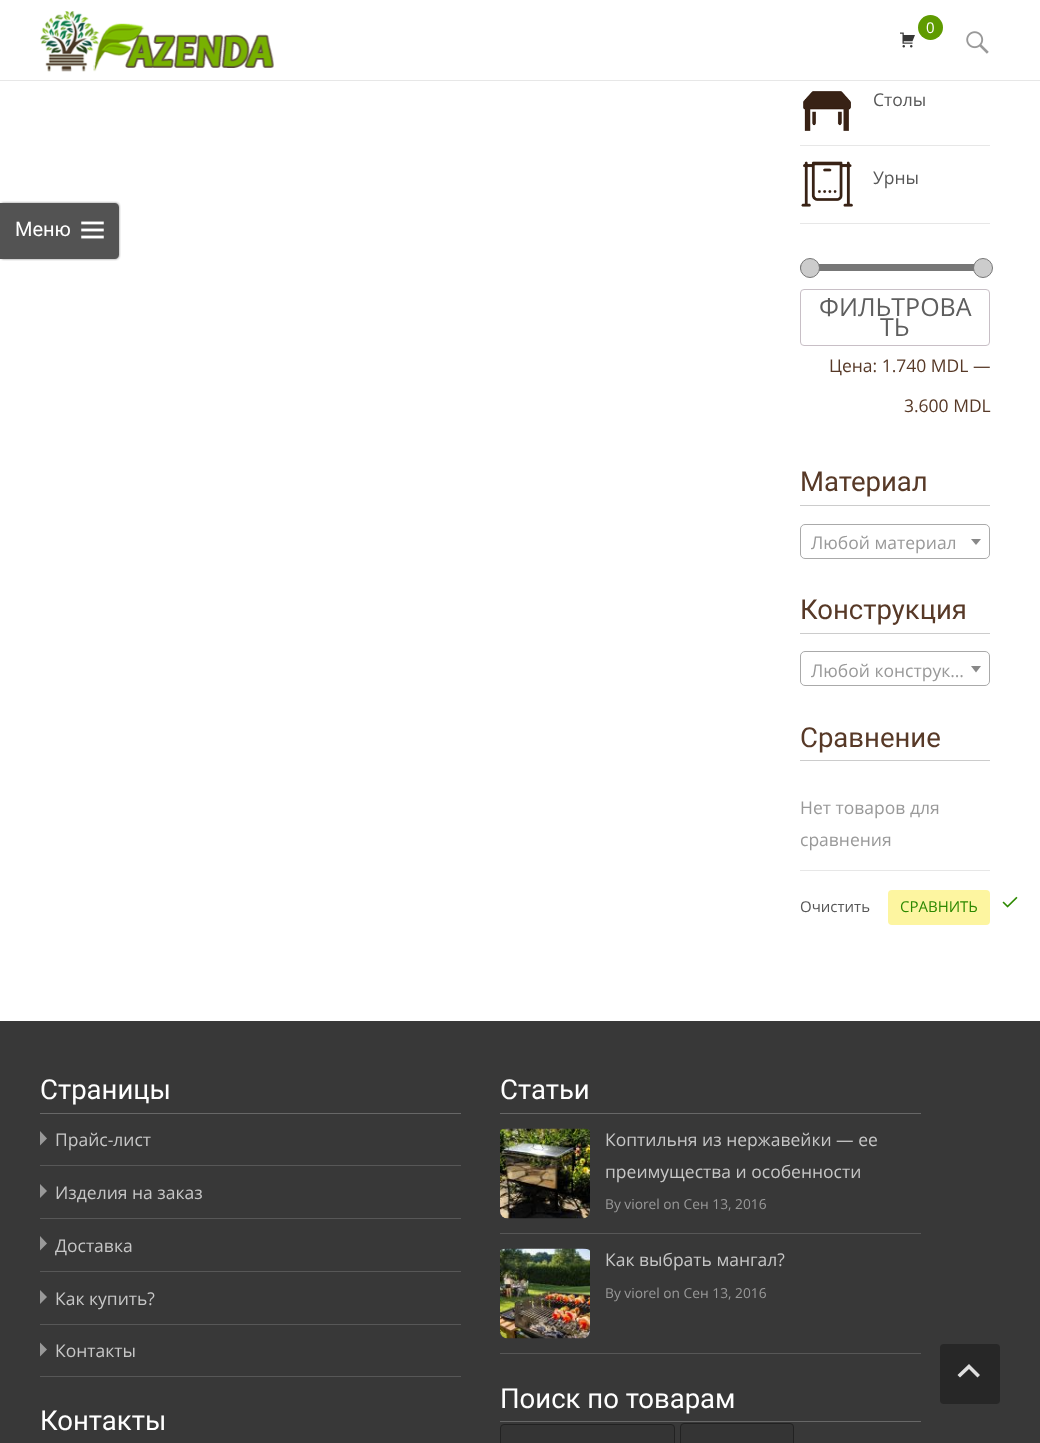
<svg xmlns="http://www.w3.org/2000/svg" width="1040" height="1443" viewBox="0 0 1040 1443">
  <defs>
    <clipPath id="clip1"><path d="M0 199H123V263H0ZM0 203H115C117 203 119 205 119 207V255C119 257 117 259 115 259H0Z" clip-rule="evenodd"/></clipPath>
    <filter id="blur1" x="-50%" y="-200%" width="200%" height="500%"><feGaussianBlur stdDeviation="1"/></filter>
  </defs>
  <rect width="100%" height="100%" fill="#ffffff"/>
  <rect x="0" y="80" width="1040" height="1" fill="#e7e7e7"/>
  <image x="40" y="11" width="234" height="61" href="img1.png"/>
  <circle cx="930.5" cy="27.5" r="12.5" fill="#5f9b00"/>
  <text x="926" y="33" font-family="Open Sans" font-size="15" fill="#ffffff">0</text>
  <image x="900" y="32" width="15" height="16" href="img2.png"/>
  <image x="966" y="31" width="23" height="23" href="img3.png"/>
  <g clip-path="url(#clip1)">
    <rect x="0" y="203" width="119" height="56" rx="4" fill="#323232" fill-opacity="0.64" filter="url(#blur1)"/>
  </g>
  <path d="M0 203H115C117 203 119 205 119 207V255C119 257 117 259 115 259H0Z" fill="#282828" fill-opacity="0.8"/>
  <text x="15" y="236" font-family="Roboto" font-size="20" fill="#ffffff">Меню</text>
  <image x="81" y="221" width="23" height="18" href="img4.png"/>
  <rect x="800" y="145" width="190" height="1" fill="#e7e7e7"/>
  <image x="803" y="91" width="48" height="40" href="img5.png"/>
  <text x="873" y="106" font-family="Open Sans" font-size="17.5" fill="#575757">Столы</text>
  <rect x="800" y="223" width="190" height="1" fill="#e7e7e7"/>
  <image x="801" y="161" width="52" height="46" href="img6.png"/>
  <text x="873" y="184" font-family="Open Sans" font-size="17.5" fill="#575757">Урны</text>
  <rect x="800" y="264" width="190" height="7" rx="3.5" fill="#777777"/>
  <circle cx="810" cy="268" r="9.5" fill="#cccccc" stroke="#777777"/>
  <circle cx="983" cy="268" r="9.5" fill="#cccccc" stroke="#777777"/>
  <rect x="800.5" y="289.5" width="189" height="56" rx="3.5" fill="none" stroke="#c8bfc6"/>
  <text x="819" y="316" font-family="Open Sans" font-size="25" fill="#5e5e5e">ФИЛЬТРОВА</text>
  <text x="880" y="336" font-family="Open Sans" font-size="25" fill="#5e5e5e">ТЬ</text>
  <text x="829" y="372" font-family="Open Sans" font-size="17.5" fill="#573927">Цена: 1.740 MDL —</text>
  <text x="904" y="412" font-family="Open Sans" font-size="17.5" fill="#573927">3.600 MDL</text>
  <rect x="800" y="505" width="190" height="1" fill="#cccccc"/>
  <text x="800" y="491" font-family="Roboto" font-size="27.5" fill="#573927">Материал</text>
  <rect x="800.5" y="524.5" width="189" height="34" rx="4.5" fill="none" stroke="#aaaaaa"/>
  <text x="811" y="549" font-family="Open Sans" font-size="17.5" fill="#999999">Любой материал</text>
  <path d="M971 539H981L976 545Z" fill="#888888"/>
  <rect x="800" y="633" width="190" height="1" fill="#cccccc"/>
  <text x="800" y="619" font-family="Roboto" font-size="27.5" fill="#573927">Конструкция</text>
  <rect x="800.5" y="651.5" width="189" height="34" rx="4.5" fill="none" stroke="#aaaaaa"/>
  <text x="811" y="677" font-family="Open Sans" font-size="17.5" fill="#999999">Любой конструк…</text>
  <path d="M971 666H981L976 672.5Z" fill="#888888"/>
  <rect x="800" y="760" width="190" height="1" fill="#cccccc"/>
  <text x="800" y="747" font-family="Roboto" font-size="27.5" fill="#573927">Сравнение</text>
  <rect x="800" y="870" width="190" height="1" fill="#e7e7e7"/>
  <text x="800" y="814" font-family="Open Sans" font-size="17.5" fill="#999999">Нет товаров для</text>
  <text x="800" y="846" font-family="Open Sans" font-size="17.5" fill="#999999">сравнения</text>
  <text x="800" y="912" font-family="Open Sans" font-size="15" fill="#575757">Очистить</text>
  <rect x="888" y="890" width="102" height="35" rx="4" fill="#fdf5a0"/>
  <text x="900" y="912" font-family="Open Sans" font-size="15" fill="#2d8900">СРАВНИТЬ</text>
  <image x="1002" y="896" width="16" height="12" href="img7.png"/>
  <rect x="0" y="1021" width="1040" height="422" fill="#383838"/>
  <rect x="40" y="1113" width="421" height="1" fill="#676767"/>
  <text x="40" y="1099" font-family="Roboto" font-size="27.5" fill="#ffffff">Страницы</text>
  <rect x="40" y="1165" width="421" height="1" fill="#575757"/>
  <path d="M40 1145.5L47 1138.5L40 1131Z" fill="#999999"/>
  <text x="55" y="1146" font-family="Open Sans" font-size="17.5" fill="#c7c7c7">Прайс-лист</text>
  <rect x="40" y="1218" width="421" height="1" fill="#575757"/>
  <path d="M40 1198L47 1191L40 1184Z" fill="#999999"/>
  <text x="55" y="1199" font-family="Open Sans" font-size="17.5" fill="#c7c7c7">Изделия на заказ</text>
  <rect x="40" y="1271" width="421" height="1" fill="#575757"/>
  <path d="M40 1250.5L47 1243.5L40 1236Z" fill="#999999"/>
  <text x="55" y="1252" font-family="Open Sans" font-size="17.5" fill="#c7c7c7">Доставка</text>
  <rect x="40" y="1324" width="421" height="1" fill="#575757"/>
  <path d="M40 1304L47 1297L40 1290Z" fill="#999999"/>
  <text x="55" y="1305" font-family="Open Sans" font-size="17.5" fill="#c7c7c7">Как купить?</text>
  <rect x="40" y="1376" width="421" height="1" fill="#575757"/>
  <path d="M40 1356.5L47 1349.5L40 1342.5Z" fill="#999999"/>
  <text x="55" y="1357" font-family="Open Sans" font-size="17.5" fill="#c7c7c7">Контакты</text>
  <rect x="500" y="1113" width="421" height="1" fill="#676767"/>
  <text x="500" y="1099" font-family="Roboto" font-size="27.5" fill="#ffffff">Статьи</text>
  <rect x="500" y="1233" width="421" height="1" fill="#575757"/>
  <image x="500" y="1128" width="90" height="91" href="img8.png"/>
  <text x="605" y="1146" font-family="Open Sans" font-size="17.5" fill="#c7c7c7">Коптильня из нержавейки — ее</text>
  <text x="605" y="1178" font-family="Open Sans" font-size="17.5" fill="#c7c7c7">преимущества и особенности</text>
  <text x="605" y="1209" font-family="Open Sans" font-size="13.75" fill="#999999">By viorel on Сен 13, 2016</text>
  <rect x="500" y="1353" width="421" height="1" fill="#575757"/>
  <image x="500" y="1248" width="90" height="91" href="img9.png"/>
  <text x="605" y="1266" font-family="Open Sans" font-size="17.5" fill="#c7c7c7">Как выбрать мангал?</text>
  <text x="605" y="1298" font-family="Open Sans" font-size="13.75" fill="#999999">By viorel on Сен 13, 2016</text>
  <rect x="500" y="1421" width="421" height="1" fill="#676767"/>
  <text x="500" y="1408" font-family="Roboto" font-size="27.5" fill="#ffffff">Поиск по товарам</text>
  <rect x="500.5" y="1424.5" width="174" height="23" rx="3.5" fill="#343434" stroke="#222222"/>
  <rect x="680.5" y="1423.5" width="113" height="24" rx="3.5" fill="#343434" stroke="#222222"/>
  <text x="40" y="1430" font-family="Roboto" font-size="27.5" fill="#ffffff">Контакты</text>
  <rect x="940" y="1344" width="60" height="60" rx="4" fill="#272727"/>
  <path d="M957.5 1375L969 1364L980 1375L977.5 1377.5L969 1369L960 1377.5Z" fill="#dfdfdf"/>
</svg>
